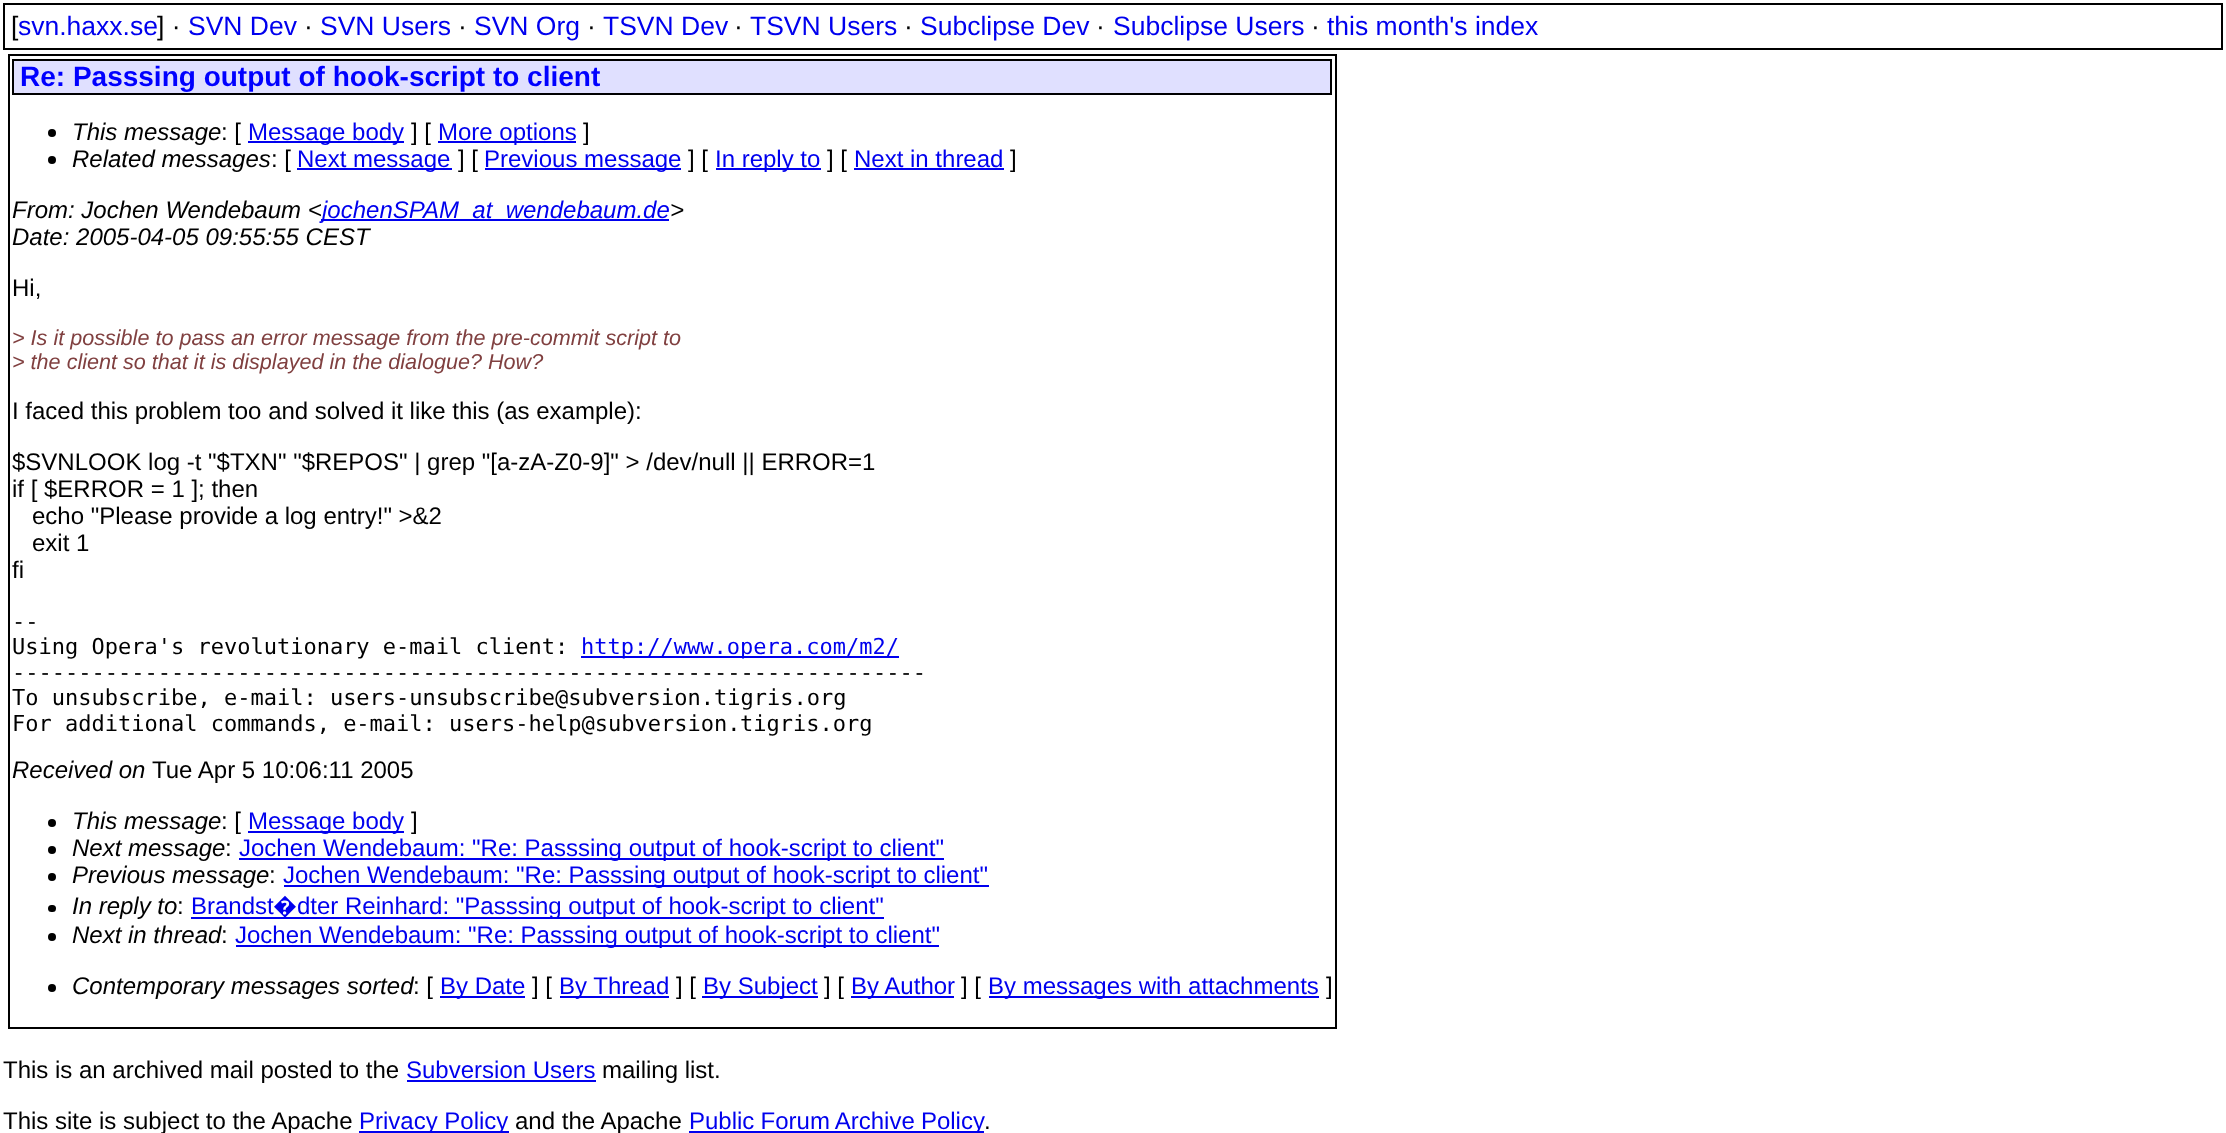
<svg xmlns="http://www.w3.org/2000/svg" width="2226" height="1133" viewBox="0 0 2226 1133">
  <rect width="100%" height="100%" fill="#ffffff"/>
  <rect x="4" y="4" width="2218" height="45" fill="none" stroke="#000000" stroke-width="2"/>
  <text x="11" y="35" font-family="Liberation Sans" font-size="26.5" fill="#000000">[</text>
  <text x="18" y="35" font-family="Liberation Sans" font-size="26.5" fill="#0000ee">svn.haxx.se</text>
  <text x="157" y="35" font-family="Liberation Sans" font-size="26.5" fill="#000000">] ·</text>
  <text x="188" y="35" font-family="Liberation Sans" font-size="26.5" fill="#0000ee">SVN Dev</text>
  <text x="304" y="35" font-family="Liberation Sans" font-size="26.5" fill="#000000">·</text>
  <text x="320" y="35" font-family="Liberation Sans" font-size="26.5" fill="#0000ee">SVN Users</text>
  <text x="458" y="35" font-family="Liberation Sans" font-size="26.5" fill="#000000">·</text>
  <text x="474" y="35" font-family="Liberation Sans" font-size="26.5" fill="#0000ee">SVN Org</text>
  <text x="587" y="35" font-family="Liberation Sans" font-size="26.5" fill="#000000">·</text>
  <text x="603" y="35" font-family="Liberation Sans" font-size="26.5" fill="#0000ee">TSVN Dev</text>
  <text x="734" y="35" font-family="Liberation Sans" font-size="26.5" fill="#000000">·</text>
  <text x="750" y="35" font-family="Liberation Sans" font-size="26.5" fill="#0000ee">TSVN Users</text>
  <text x="904" y="35" font-family="Liberation Sans" font-size="26.5" fill="#000000">·</text>
  <text x="920" y="35" font-family="Liberation Sans" font-size="26.5" fill="#0000ee">Subclipse Dev</text>
  <text x="1096" y="35" font-family="Liberation Sans" font-size="26.5" fill="#000000">·</text>
  <text x="1113" y="35" font-family="Liberation Sans" font-size="26.5" fill="#0000ee">Subclipse Users</text>
  <text x="1311" y="35" font-family="Liberation Sans" font-size="26.5" fill="#000000">·</text>
  <text x="1327" y="35" font-family="Liberation Sans" font-size="26.5" fill="#0000ee">this month's index</text>
  <rect x="9" y="55" width="1327" height="973" fill="none" stroke="#000000" stroke-width="2"/>
  <rect x="13" y="60" width="1318" height="34" fill="#e0e0ff" stroke="#000000" stroke-width="2"/>
  <text x="20" y="86" font-family="Liberation Sans" font-size="28" font-weight="bold" fill="#0000ff">Re: Passsing output of hook-script to client</text>
  <circle cx="52" cy="133" r="4" fill="#000000"/>
  <text x="72" y="140" font-family="Liberation Sans" font-size="24" font-style="italic" fill="#000000">This message</text>
  <text x="221" y="140" font-family="Liberation Sans" font-size="24" fill="#000000">: [</text>
  <rect x="248" y="141" width="156" height="2" fill="#0000ee"/>
  <text x="248" y="140" font-family="Liberation Sans" font-size="24" fill="#0000ee">Message body</text>
  <text x="411" y="140" font-family="Liberation Sans" font-size="24" fill="#000000">] [</text>
  <rect x="438" y="141" width="138" height="2" fill="#0000ee"/>
  <text x="438" y="140" font-family="Liberation Sans" font-size="24" fill="#0000ee">More options</text>
  <text x="583" y="140" font-family="Liberation Sans" font-size="24" fill="#000000">]</text>
  <circle cx="52" cy="160" r="4" fill="#000000"/>
  <text x="72" y="167" font-family="Liberation Sans" font-size="24" font-style="italic" fill="#000000">Related messages</text>
  <text x="271" y="167" font-family="Liberation Sans" font-size="24" fill="#000000">: [</text>
  <rect x="297" y="168" width="155" height="2" fill="#0000ee"/>
  <text x="297" y="167" font-family="Liberation Sans" font-size="24" fill="#0000ee">Next message</text>
  <text x="458" y="167" font-family="Liberation Sans" font-size="24" fill="#000000">] [</text>
  <rect x="485" y="168" width="196" height="2" fill="#0000ee"/>
  <text x="484" y="167" font-family="Liberation Sans" font-size="24" fill="#0000ee">Previous message</text>
  <text x="688" y="167" font-family="Liberation Sans" font-size="24" fill="#000000">] [</text>
  <rect x="716" y="168" width="105" height="2" fill="#0000ee"/>
  <text x="715" y="167" font-family="Liberation Sans" font-size="24" fill="#0000ee">In reply to</text>
  <text x="827" y="167" font-family="Liberation Sans" font-size="24" fill="#000000">] [</text>
  <text x="854" y="167" font-family="Liberation Sans" font-size="24" fill="#0000ee">Next in thread</text>
  <rect x="854" y="168" width="150" height="2" fill="#0000ee"/>
  <text x="1010" y="167" font-family="Liberation Sans" font-size="24" fill="#000000">]</text>
  <text x="12" y="218" font-family="Liberation Sans" font-size="24" font-style="italic" fill="#000000">From: Jochen Wendebaum &lt;</text>
  <rect x="321" y="219" width="348" height="2" fill="#0000ee"/>
  <text x="322" y="218" font-family="Liberation Sans" font-size="24" font-style="italic" fill="#0000ee">jochenSPAM_at_wendebaum.de</text>
  <text x="670" y="218" font-family="Liberation Sans" font-size="24" font-style="italic" fill="#000000">&gt;</text>
  <text x="12" y="245" font-family="Liberation Sans" font-size="24" font-style="italic" fill="#000000">Date: 2005-04-05 09:55:55 CEST</text>
  <text x="12" y="296" font-family="Liberation Sans" font-size="24" fill="#000000">Hi,</text>
  <text x="12" y="345" font-family="Liberation Sans" font-size="21.6" font-style="italic" fill="#804040">&gt; Is it possible to pass an error message from the pre-commit script to</text>
  <text x="12" y="369" font-family="Liberation Sans" font-size="21.6" font-style="italic" fill="#804040">&gt; the client so that it is displayed in the dialogue? How?</text>
  <text x="12" y="419" font-family="Liberation Sans" font-size="24" fill="#000000">I faced this problem too and solved it like this (as example):</text>
  <text x="12" y="470" font-family="Liberation Sans" font-size="24" fill="#000000">$SVNLOOK log -t "$TXN" "$REPOS" | grep "[a-zA-Z0-9]" &gt; /dev/null || ERROR=1</text>
  <text x="12" y="497" font-family="Liberation Sans" font-size="24" fill="#000000">if [ $ERROR = 1 ]; then</text>
  <text x="32" y="524" font-family="Liberation Sans" font-size="24" fill="#000000">echo "Please provide a log entry!" &gt;&amp;2</text>
  <text x="32" y="551" font-family="Liberation Sans" font-size="24" fill="#000000">exit 1</text>
  <text x="12" y="578" font-family="Liberation Sans" font-size="24" fill="#000000">fi</text>
  <text x="12" y="629" font-family="DejaVu Sans Mono" font-size="22" fill="#000000">--</text>
  <text x="12" y="654" font-family="DejaVu Sans Mono" font-size="22" fill="#000000">Using Opera's revolutionary e-mail client:</text>
  <rect x="581" y="656" width="318" height="2" fill="#0000ee"/>
  <text x="581" y="654" font-family="DejaVu Sans Mono" font-size="22" fill="#0000ee">http://www.opera.com/m2/</text>
  <text x="12" y="680" font-family="DejaVu Sans Mono" font-size="22" fill="#000000">---------------------------------------------------------------------</text>
  <text x="12" y="705" font-family="DejaVu Sans Mono" font-size="22" fill="#000000">To unsubscribe, e-mail: users-unsubscribe@subversion.</text>
  <text x="714" y="705" font-family="DejaVu Sans Mono" font-size="22" fill="#000000">tigris.org</text>
  <text x="12" y="731" font-family="DejaVu Sans Mono" font-size="22" fill="#000000">For additional commands, e-mail: users-help@subversion.</text>
  <text x="740" y="731" font-family="DejaVu Sans Mono" font-size="22" fill="#000000">tigris.org</text>
  <text x="12" y="778" font-family="Liberation Sans" font-size="24" font-style="italic" fill="#000000">Received on</text>
  <text x="152" y="778" font-family="Liberation Sans" font-size="24" fill="#000000">Tue Apr 5 10:06:11 2005</text>
  <circle cx="52" cy="823" r="4" fill="#000000"/>
  <text x="72" y="829" font-family="Liberation Sans" font-size="24" font-style="italic" fill="#000000">This message</text>
  <text x="221" y="829" font-family="Liberation Sans" font-size="24" fill="#000000">: [</text>
  <rect x="248" y="831" width="156" height="2" fill="#0000ee"/>
  <text x="248" y="829" font-family="Liberation Sans" font-size="24" fill="#0000ee">Message body</text>
  <text x="411" y="829" font-family="Liberation Sans" font-size="24" fill="#000000">]</text>
  <circle cx="52" cy="850" r="4" fill="#000000"/>
  <text x="72" y="856" font-family="Liberation Sans" font-size="24" font-style="italic" fill="#000000">Next message</text>
  <text x="225" y="856" font-family="Liberation Sans" font-size="24" fill="#000000">:</text>
  <rect x="239" y="858" width="705" height="2" fill="#0000ee"/>
  <text x="239" y="856" font-family="Liberation Sans" font-size="24" fill="#0000ee">Jochen Wendebaum: "Re: Passsing output of hook-script to client"</text>
  <circle cx="52" cy="877" r="4" fill="#000000"/>
  <text x="72" y="883" font-family="Liberation Sans" font-size="24" font-style="italic" fill="#000000">Previous message</text>
  <text x="269" y="883" font-family="Liberation Sans" font-size="24" fill="#000000">:</text>
  <rect x="284" y="885" width="705" height="2" fill="#0000ee"/>
  <text x="283" y="883" font-family="Liberation Sans" font-size="24" fill="#0000ee">Jochen Wendebaum: "Re: Passsing output of hook-script to client"</text>
  <rect x="48" y="905" width="8" height="7" rx="3.5" fill="#000000"/>
  <text x="72" y="914" font-family="Liberation Sans" font-size="24" font-style="italic" fill="#000000">In reply to</text>
  <text x="177" y="914" font-family="Liberation Sans" font-size="24" fill="#000000">:</text>
  <text x="191" y="914" font-family="Liberation Sans" font-size="24" fill="#0000ee">Brandst</text>
  <rect x="191" y="917" width="693" height="2" fill="#0000ee"/>
  <text x="273" y="914" font-family="Noto Sans" font-size="24" fill="#0000ee">�</text>
  <text x="297" y="914" font-family="Liberation Sans" font-size="24" fill="#0000ee">dter Reinhard: "Passsing output of hook-script to client"</text>
  <circle cx="52" cy="937" r="4" fill="#000000"/>
  <text x="72" y="943" font-family="Liberation Sans" font-size="24" font-style="italic" fill="#000000">Next in thread</text>
  <text x="221" y="943" font-family="Liberation Sans" font-size="24" fill="#000000">:</text>
  <rect x="236" y="945" width="703" height="2" fill="#0000ee"/>
  <text x="235" y="943" font-family="Liberation Sans" font-size="24" fill="#0000ee">Jochen Wendebaum: "Re: Passsing output of hook-script to client"</text>
  <circle cx="52" cy="988" r="4" fill="#000000"/>
  <text x="72" y="994" font-family="Liberation Sans" font-size="24" font-style="italic" fill="#000000">Contemporary messages sorted</text>
  <text x="413" y="994" font-family="Liberation Sans" font-size="24" fill="#000000">: [</text>
  <rect x="440" y="996" width="85" height="2" fill="#0000ee"/>
  <text x="440" y="994" font-family="Liberation Sans" font-size="24" fill="#0000ee">By Date</text>
  <text x="532" y="994" font-family="Liberation Sans" font-size="24" fill="#000000">] [</text>
  <rect x="560" y="996" width="109" height="2" fill="#0000ee"/>
  <text x="559" y="994" font-family="Liberation Sans" font-size="24" fill="#0000ee">By Thread</text>
  <text x="676" y="994" font-family="Liberation Sans" font-size="24" fill="#000000">] [</text>
  <rect x="702" y="996" width="116" height="2" fill="#0000ee"/>
  <text x="703" y="994" font-family="Liberation Sans" font-size="24" fill="#0000ee">By Subject</text>
  <text x="824" y="994" font-family="Liberation Sans" font-size="24" fill="#000000">] [</text>
  <rect x="851" y="996" width="103" height="2" fill="#0000ee"/>
  <text x="851" y="994" font-family="Liberation Sans" font-size="24" fill="#0000ee">By Author</text>
  <text x="961" y="994" font-family="Liberation Sans" font-size="24" fill="#000000">] [</text>
  <rect x="989" y="996" width="330" height="2" fill="#0000ee"/>
  <text x="988" y="994" font-family="Liberation Sans" font-size="24" fill="#0000ee">By messages with attachments</text>
  <text x="1326" y="994" font-family="Liberation Sans" font-size="24" fill="#000000">]</text>
  <text x="3" y="1078" font-family="Liberation Sans" font-size="24" fill="#000000">This is an archived mail posted to the</text>
  <text x="406" y="1078" font-family="Liberation Sans" font-size="24" fill="#0000ee">Subversion Users</text>
  <rect x="407" y="1080" width="189" height="2" fill="#0000ee"/>
  <text x="602" y="1078" font-family="Liberation Sans" font-size="24" fill="#000000">mailing list.</text>
  <text x="3" y="1129" font-family="Liberation Sans" font-size="24" fill="#000000">This site is subject to the Apache</text>
  <rect x="359" y="1131" width="150" height="2" fill="#0000ee"/>
  <text x="359" y="1129" font-family="Liberation Sans" font-size="24" fill="#0000ee">Privacy Policy</text>
  <text x="515" y="1129" font-family="Liberation Sans" font-size="24" fill="#000000">and the Apache</text>
  <rect x="689" y="1131" width="295" height="2" fill="#0000ee"/>
  <text x="689" y="1129" word-spacing="-0.5" font-family="Liberation Sans" font-size="24" fill="#0000ee">Public Forum Archive Policy</text>
  <text x="984" y="1129" font-family="Liberation Sans" font-size="24" fill="#000000">.</text>
</svg>
